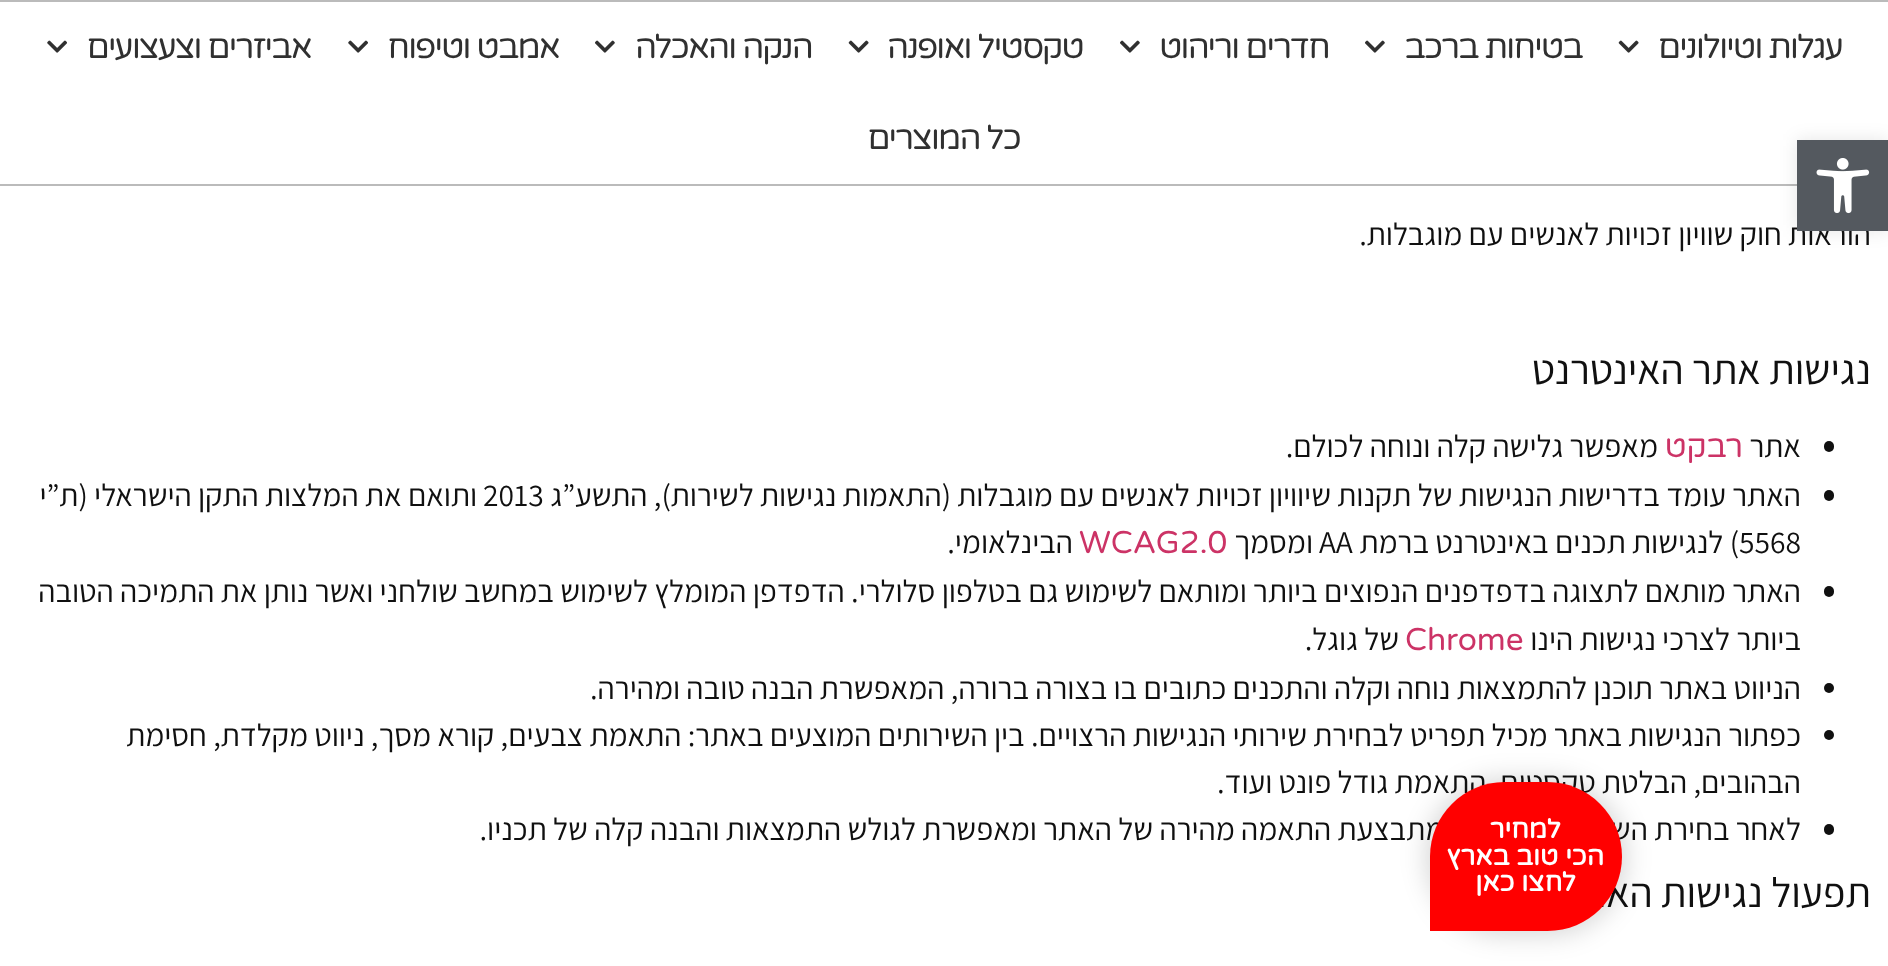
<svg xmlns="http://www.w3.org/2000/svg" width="1888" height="966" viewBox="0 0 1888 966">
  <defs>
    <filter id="blur1" x="-50%" y="-200%" width="200%" height="500%"><feGaussianBlur stdDeviation="9"/></filter>
    <filter id="blur2" x="-50%" y="-200%" width="200%" height="500%"><feGaussianBlur stdDeviation="13"/></filter>
  </defs>
  <rect width="100%" height="100%" fill="#ffffff"/>
  <rect x="0" y="0" width="1888" height="2" fill="#bbbbbb"/>
  <rect x="0" y="184" width="1797" height="2" fill="#bbbbbb"/>
  <text x="1842" y="58" font-family="Varela Round" font-size="33.25" letter-spacing="-1.75" direction="rtl" fill="#303030">עגלות וטיולונים</text>
  <image x="1618" y="40" width="21" height="13" href="img1.png"/>
  <text x="1582" y="58" font-family="Varela Round" font-size="33.25" letter-spacing="-1.75" direction="rtl" fill="#303030">בטיחות ברכב</text>
  <image x="1365" y="40" width="20" height="13" href="img2.png"/>
  <text x="1329" y="58" font-family="Varela Round" font-size="33.25" letter-spacing="-1.75" direction="rtl" fill="#303030">חדרים וריהוט</text>
  <image x="1120" y="40" width="20" height="13" href="img2.png"/>
  <text x="1083" y="58" font-family="Varela Round" font-size="33.25" letter-spacing="-1.75" direction="rtl" fill="#303030">טקסטיל ואופנה</text>
  <image x="848" y="40" width="21" height="13" href="img1.png"/>
  <text x="812" y="58" font-family="Varela Round" font-size="33.25" letter-spacing="-1.75" direction="rtl" fill="#303030">הנקה והאכלה</text>
  <image x="595" y="40" width="20" height="13" href="img2.png"/>
  <text x="559" y="58" font-family="Varela Round" font-size="33.25" letter-spacing="-1.75" direction="rtl" fill="#303030">אמבט וטיפוח</text>
  <image x="348" y="40" width="20" height="13" href="img3.png"/>
  <text x="311" y="58" font-family="Varela Round" font-size="33.25" letter-spacing="-1.75" direction="rtl" fill="#303030">אביזרים וצעצועים</text>
  <image x="47" y="40" width="20" height="13" href="img3.png"/>
  <text x="1020" y="149" font-family="Varela Round" font-size="33.25" letter-spacing="-1.75" direction="rtl" fill="#303030">כל המוצרים</text>
  <rect x="1797" y="140" width="91" height="91" fill="#000000" fill-opacity="0.1" filter="url(#blur1)"/>
  <text x="1871" y="245" font-family="Assistant" font-size="31.5" direction="rtl" fill="#101010">הוראות חוק שוויון זכויות לאנשים עם מוגבלות.</text>
  <rect x="1797" y="140" width="91" height="91" fill="#54595f"/>
  <image x="1816" y="158" width="54" height="56" href="img4.png"/>
  <text x="1871" y="384" font-family="Assistant" font-size="42" direction="rtl" fill="#101010">נגישות אתר האינטרנט</text>
  <rect x="1824" y="441" width="10" height="11" rx="5" fill="#101010"/>
  <text x="1801" y="457" font-family="Assistant" font-size="31.5" direction="rtl" fill="#101010">אתר</text>
  <text x="1743" y="457" font-family="Varela Round" font-size="31.5" direction="rtl" fill="#cc3366">רבקט</text>
  <text x="1658" y="457" font-family="Assistant" font-size="31.5" direction="rtl" fill="#101010">מאפשר גלישה קלה ונוחה לכולם.</text>
  <rect x="1824" y="490" width="10" height="11" rx="5" fill="#101010"/>
  <text x="1801" y="506" font-family="Assistant" font-size="31.5" direction="rtl" fill="#101010">האתר עומד בדרישות הנגישות של תקנות שיוויון זכויות לאנשים עם מוגבלות (התאמות נגישות לשירות), התשע”ג</text>
  <text x="483" y="506" font-family="Assistant" font-size="31.5" fill="#101010">2013</text>
  <text x="477" y="506" font-family="Assistant" font-size="31.5" direction="rtl" fill="#101010">ותואם את המלצות התקן הישראלי (ת”י</text>
  <text x="1739" y="553" font-family="Assistant" font-size="31.5" fill="#101010">5568</text>
  <text x="1739" y="553" font-family="Assistant" font-size="31.5" direction="rtl" fill="#101010">) לנגישות תכנים באינטרנט ברמת</text>
  <text x="1319" y="553" font-family="Assistant" font-size="31.5" fill="#101010">AA</text>
  <text x="1313" y="553" font-family="Assistant" font-size="31.5" direction="rtl" fill="#101010">ומסמך</text>
  <text x="1079" y="553" font-family="Varela Round" font-size="31.5" fill="#cc3366">WCAG2.0</text>
  <text x="1073" y="553" font-family="Assistant" font-size="31.5" direction="rtl" fill="#101010">הבינלאומי.</text>
  <rect x="1824" y="586" width="10" height="11" rx="5" fill="#101010"/>
  <text x="1801" y="602" font-family="Assistant" font-size="31.5" direction="rtl" fill="#101010">האתר מותאם לתצוגה בדפדפנים הנפוצים ביותר ומותאם לשימוש גם בטלפון סלולרי. הדפדפן המומלץ לשימוש במחשב שולחני ואשר נותן את התמיכה הטובה</text>
  <text x="1801" y="650" font-family="Assistant" font-size="31.5" direction="rtl" fill="#101010">ביותר לצרכי נגישות הינו</text>
  <text x="1405" y="650" font-family="Varela Round" font-size="31.5" fill="#cc3366">Chrome</text>
  <text x="1399" y="650" font-family="Assistant" font-size="31.5" direction="rtl" fill="#101010">של גוגל.</text>
  <circle cx="1829" cy="688" r="5" fill="#101010"/>
  <text x="1801" y="699" font-family="Assistant" font-size="31.5" direction="rtl" fill="#101010">הניווט באתר תוכנן להתמצאות נוחה וקלה והתכנים כתובים בו בצורה ברורה, המאפשרת הבנה טובה ומהירה.</text>
  <circle cx="1829" cy="735" r="5" fill="#101010"/>
  <text x="1801" y="746" font-family="Assistant" font-size="31.5" direction="rtl" fill="#101010">כפתור הנגישות באתר מכיל תפריט לבחירת שירותי הנגישות הרצויים. בין השירותים המוצעים באתר: התאמת צבעים, קורא מסך, ניווט מקלדת, חסימת</text>
  <text x="1801" y="793" font-family="Assistant" font-size="31.5" direction="rtl" fill="#101010">הבהובים, הבלטת טקסטים, התאמת גודל פונט ועוד.</text>
  <rect x="1824" y="824" width="10" height="11" rx="5" fill="#101010"/>
  <text x="1801" y="840" font-family="Assistant" font-size="31.5" direction="rtl" fill="#101010">לאחר בחירת השירות המתאים, מתבצעת התאמה מהירה של האתר ומאפשרת לגולש התמצאות והבנה קלה של תכניו.</text>
  <text x="1871" y="907" font-family="Assistant" font-size="42" direction="rtl" fill="#101010">תפעול נגישות האתר</text>
  <rect x="1426" y="779" width="200" height="156" rx="78" fill="#000000" fill-opacity="0.16" filter="url(#blur2)"/>
  <path d="M1504.5 782H1547.5C1588.5 782 1622 815.5 1622 856.5C1622 897.5 1588.5 931 1547.5 931H1430V856.5C1430 815.5 1463.5 782 1504.5 782Z" fill="#ff0000"/>
  <text x="1561" y="838" font-family="Varela Round" font-size="26.25" font-weight="bold" direction="rtl" fill="#ffffff">למחיר</text>
  <text x="1604" y="865" font-family="Varela Round" font-size="26.25" font-weight="bold" direction="rtl" fill="#ffffff">הכי טוב בארץ</text>
  <text x="1576" y="891" font-family="Varela Round" font-size="26.25" font-weight="bold" direction="rtl" fill="#ffffff">לחצו כאן</text>
</svg>
